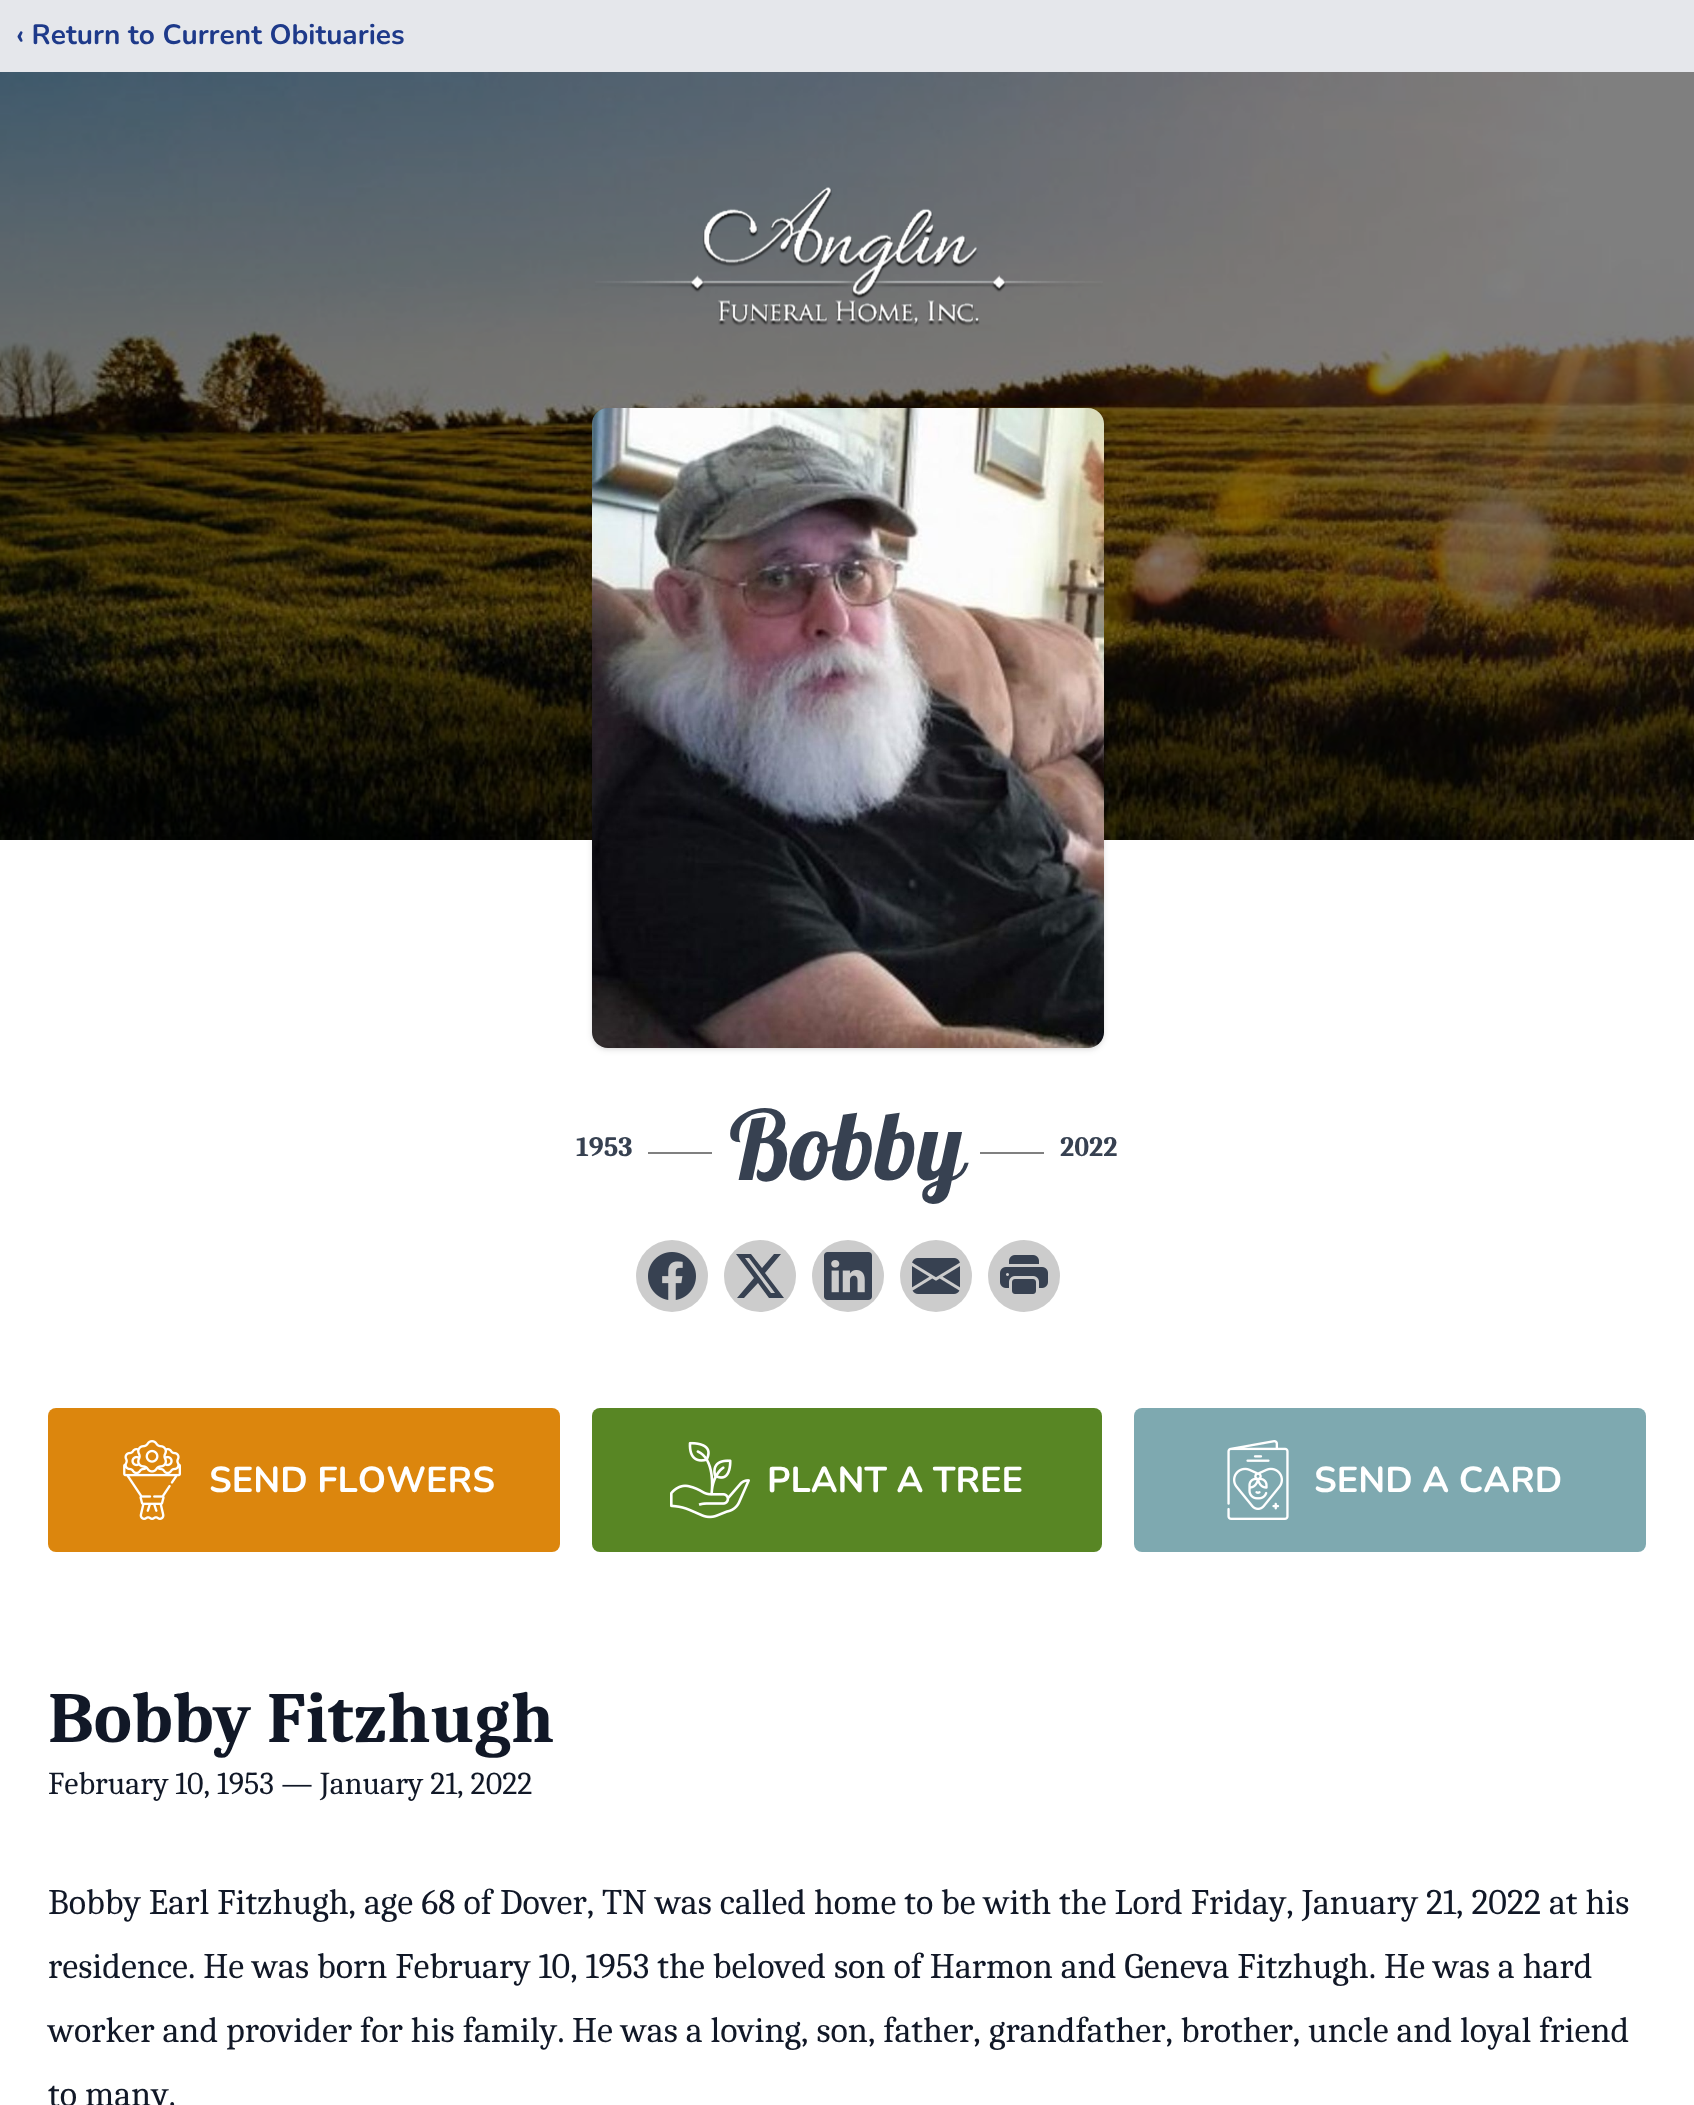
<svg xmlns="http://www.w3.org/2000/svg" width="1694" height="2105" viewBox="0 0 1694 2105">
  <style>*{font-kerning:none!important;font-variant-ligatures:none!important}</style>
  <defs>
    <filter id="blur1" x="-50%" y="-200%" width="200%" height="500%"><feGaussianBlur stdDeviation="2"/></filter>
    <filter id="blur2" x="-50%" y="-200%" width="200%" height="500%"><feGaussianBlur stdDeviation="3"/></filter>
  </defs>
  <rect width="100%" height="100%" fill="#ffffff"/>
  <rect x="0" y="0" width="1694" height="72" fill="#e5e7eb"/>
  <text x="16" y="44" font-family="Nunito" font-size="28" font-weight="bold" fill="#1e3a8a">‹ Return to Current Obituaries</text>
  <image x="0" y="72" width="1694" height="768" href="img1.png"/>
  <image x="595" y="187" width="508" height="140" href="img2.png"/>
  <rect x="594" y="412" width="508" height="636" rx="14" fill="#000000" fill-opacity="0.1" filter="url(#blur1)"/>
  <rect x="592" y="410" width="512" height="640" rx="16" fill="#000000" fill-opacity="0.1" filter="url(#blur2)"/>
  <image x="592" y="408" width="512" height="640" href="img3.png"/>
  <text x="576" y="1156" font-family="Caladea" font-size="28" font-weight="bold" fill="#374151">1953</text>
  <rect x="648" y="1152" width="64" height="2" fill="#808080"/>
  <text x="729" y="1180" font-family="Lobster" font-size="96" fill="#374151">Bobby</text>
  <rect x="980" y="1152" width="64" height="2" fill="#808080"/>
  <text x="1060" y="1156" font-family="Caladea" font-size="28" font-weight="bold" fill="#374151">2022</text>
  <circle cx="672" cy="1276" r="36" fill="#cccccc"/>
  <image x="648" y="1252" width="48" height="48" href="img4.png"/>
  <circle cx="760" cy="1276" r="36" fill="#cccccc"/>
  <path d="M774 1254H781L765 1273L784 1298H769L758 1283L744 1298H737L754 1278L736 1254H751L762 1268ZM771 1293H775L749 1258H745Z" fill="#374151"/>
  <circle cx="848" cy="1276" r="36" fill="#cccccc"/>
  <image x="824" y="1252" width="48" height="48" href="img5.png"/>
  <circle cx="936" cy="1276" r="36" fill="#cccccc"/>
  <image x="912" y="1258" width="48" height="36" href="img6.png"/>
  <circle cx="1024" cy="1276" r="36" fill="#cccccc"/>
  <image x="1000" y="1255" width="48" height="39" href="img7.png"/>
  <rect x="48" y="1408" width="512" height="144" rx="8" fill="#dc860d"/>
  <image x="123" y="1440" width="58" height="80" href="img8.png"/>
  <text x="209" y="1492" font-family="Nunito" font-size="36" font-weight="bold" fill="#ffffff">SEND FLOWERS</text>
  <rect x="592" y="1408" width="510" height="144" rx="8" fill="#588624"/>
  <image x="670" y="1441" width="80" height="78" href="img9.png"/>
  <text x="767" y="1492" font-family="Nunito" font-size="36" font-weight="bold" fill="#ffffff">PLANT A TREE</text>
  <rect x="1134" y="1408" width="512" height="144" rx="8" fill="#7ea9b0"/>
  <image x="1227" y="1440" width="62" height="80" href="img10.png"/>
  <text x="1314" y="1492" font-family="Nunito" font-size="36" font-weight="bold" fill="#ffffff">SEND A CARD</text>
  <text x="48" y="1742" font-family="Caladea" font-size="72" font-weight="bold" fill="#111827">Bobby Fitzhugh</text>
  <text x="48" y="1794" font-family="Caladea" font-size="32" fill="#111827">February 10, 1953 — January 21, 2022</text>
  <text x="48" y="1914" font-family="Caladea" font-size="36" fill="#111827">Bobby Earl Fitzhugh, age 68 of Dover,</text>
  <text x="602" y="1914" font-family="Caladea" font-size="36" fill="#111827">TN was called home to be with the Lord Friday,</text>
  <text x="1302" y="1914" font-family="Caladea" font-size="36" fill="#111827">January 21, 2022 at his</text>
  <text x="48" y="1978" font-family="Caladea" font-size="36" fill="#111827">residence. He was born February 10, 1953 the beloved</text>
  <text x="834" y="1978" font-family="Caladea" font-size="36" fill="#111827">son of Harmon and Geneva Fitzhugh. He was a hard</text>
  <text x="48" y="2042" font-family="Caladea" font-size="36" fill="#111827">worker and provider for his family.</text>
  <text x="572" y="2042" font-family="Caladea" font-size="36" fill="#111827">He was a loving, son, father,</text>
  <text x="989" y="2042" font-family="Caladea" font-size="36" fill="#111827">grandfather, brother,</text>
  <text x="1308" y="2042" font-family="Caladea" font-size="36" fill="#111827">uncle and loyal friend</text>
  <text x="48" y="2106" font-family="Caladea" font-size="36" fill="#111827">to many.</text>
</svg>
